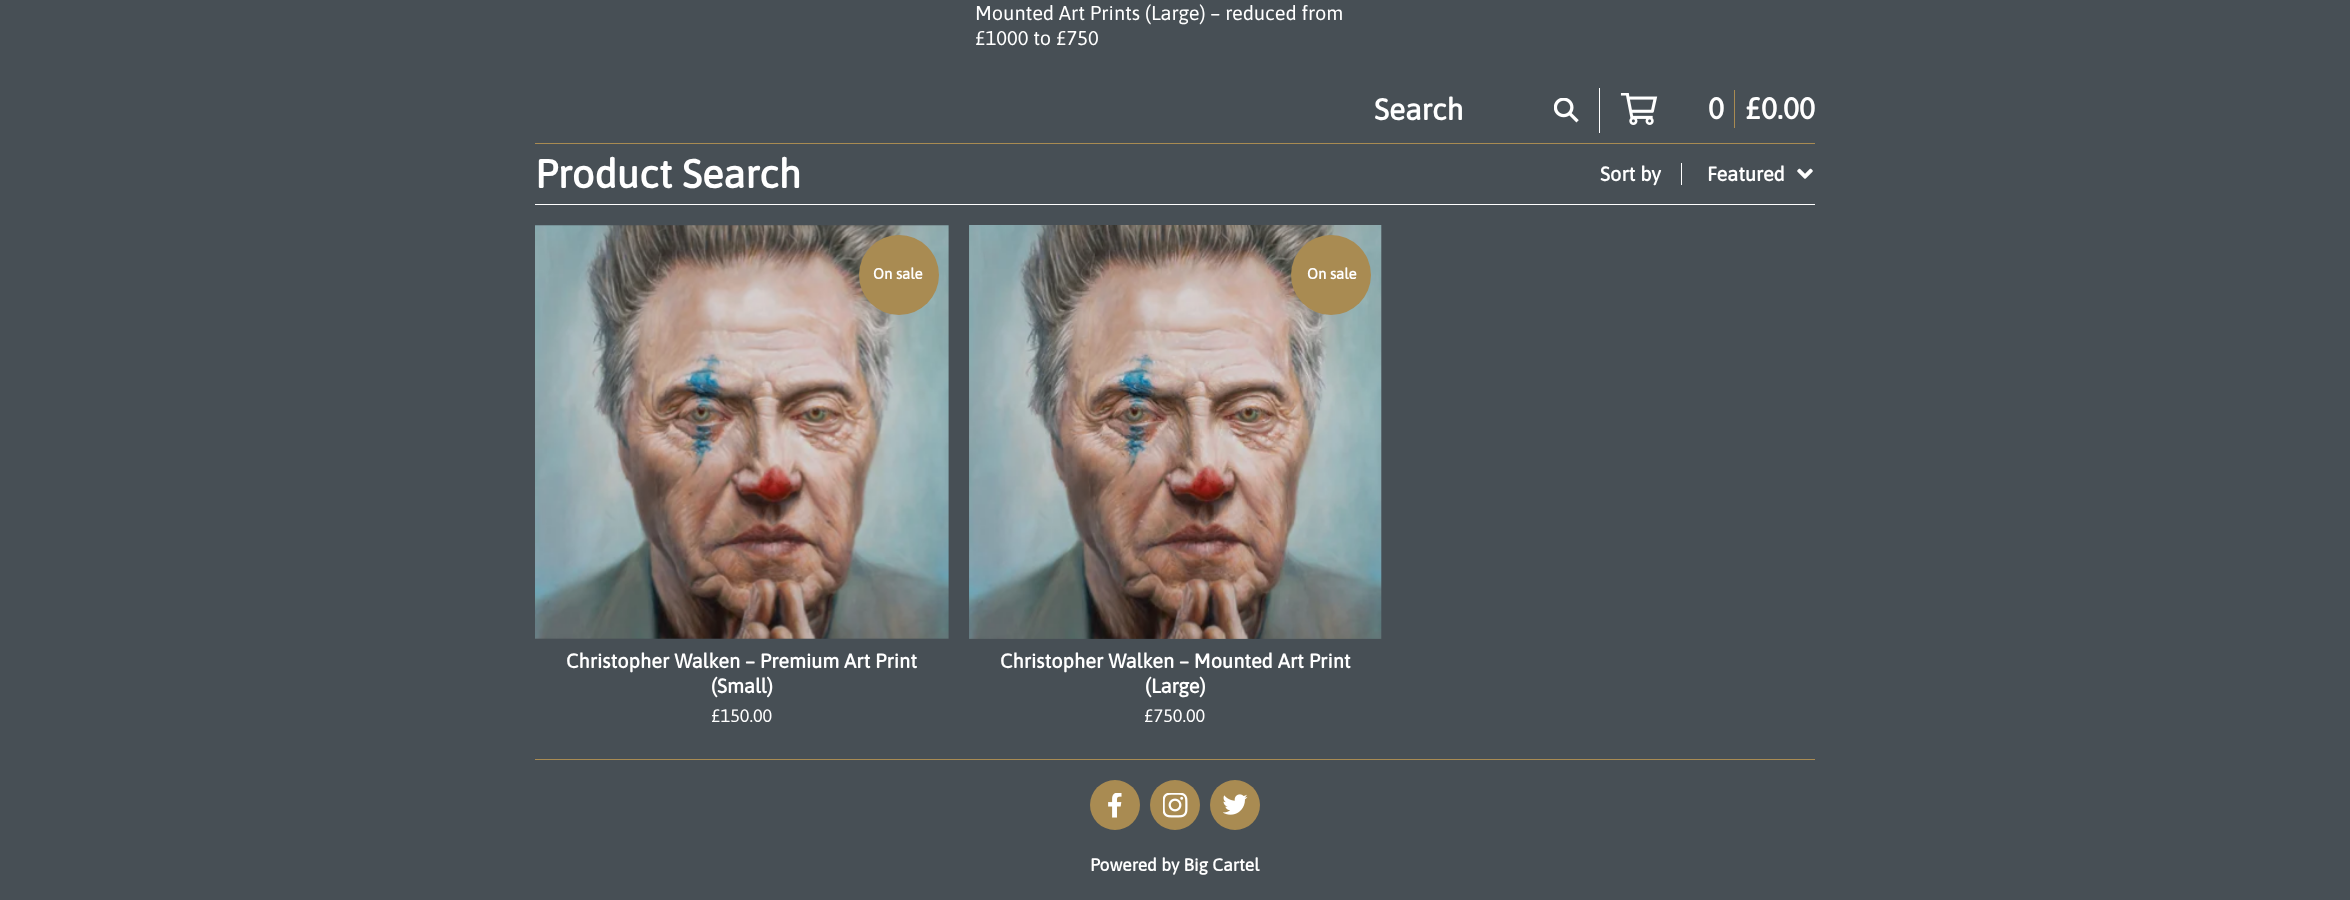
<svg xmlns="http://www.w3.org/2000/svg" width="2350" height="900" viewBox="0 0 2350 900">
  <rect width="100%" height="100%" fill="#474f55"/>
  <rect x="535" y="143" width="1280" height="1" fill="#a98b52"/>
  <text x="975" y="20" font-family="Asap" font-size="20" fill="#ffffff">Mounted Art Prints (Large) – reduced from</text>
  <text x="975" y="45" font-family="Asap" font-size="20" fill="#ffffff">£1000 to £750</text>
  <rect x="1599" y="88" width="1" height="45" fill="#ffffff"/>
  <text x="1374" y="120" font-family="Asap" font-size="30" font-weight="bold" fill="#ffffff">Search</text>
  <image x="1554" y="98" width="25" height="25" href="img1.png"/>
  <image x="1620" y="93" width="38" height="32" href="img2.png"/>
  <rect x="1734" y="90" width="1" height="38" fill="#a98b52"/>
  <text x="1708" y="119" font-family="Asap" font-size="30" font-weight="bold" fill="#ffffff">0</text>
  <text x="1745" y="119" font-family="Asap" font-size="30" font-weight="bold" fill="#ffffff">£0.00</text>
  <rect x="535" y="204" width="1280" height="1" fill="#ffffff"/>
  <text x="535" y="188" font-family="Asap" font-size="40" font-weight="bold" fill="#ffffff">Product Search</text>
  <text x="1600" y="181" font-family="Asap" font-size="20" font-weight="bold" fill="#ffffff">Sort by</text>
  <rect x="1681" y="163" width="1" height="22" fill="#ffffff"/>
  <text x="1707" y="181" font-family="Asap" font-size="20" font-weight="bold" fill="#ffffff">Featured</text>
  <image x="1797" y="168" width="16" height="11" href="img3.png"/>
  <image x="535" y="225" width="414" height="414" href="img4.png"/>
  <circle cx="899" cy="275" r="40" fill="#a98b52"/>
  <text x="873" y="279" font-family="Asap" font-size="15" font-weight="bold" fill="#ffffff">On sale</text>
  <text x="566" y="668" font-family="Asap" font-size="20" font-weight="bold" fill="#ffffff">Christopher Walken – Premium Art Print</text>
  <text x="711" y="693" font-family="Asap" font-size="20" font-weight="bold" fill="#ffffff">(Small)</text>
  <text x="711" y="722" font-family="Asap" font-size="18" fill="#ffffff">£150.00</text>
  <image x="969" y="225" width="413" height="414" href="img5.png"/>
  <circle cx="1331" cy="275" r="40" fill="#a98b52"/>
  <text x="1307" y="279" font-family="Asap" font-size="15" font-weight="bold" fill="#ffffff">On sale</text>
  <text x="1000" y="668" font-family="Asap" font-size="20" font-weight="bold" fill="#ffffff">Christopher Walken – Mounted Art Print</text>
  <text x="1145" y="693" font-family="Asap" font-size="20" font-weight="bold" fill="#ffffff">(Large)</text>
  <text x="1144" y="722" font-family="Asap" font-size="18" fill="#ffffff">£750.00</text>
  <rect x="535" y="759" width="1280" height="1" fill="#a98b52"/>
  <circle cx="1115" cy="805" r="25" fill="#a98b52"/>
  <image x="1108" y="793" width="14" height="25" href="img6.png"/>
  <circle cx="1175" cy="805" r="25" fill="#a98b52"/>
  <image x="1163" y="793" width="25" height="25" href="img7.png"/>
  <circle cx="1235" cy="805" r="25" fill="#a98b52"/>
  <image x="1223" y="794" width="25" height="21" href="img8.png"/>
  <text x="1090" y="871" font-family="Asap" font-size="17.5" font-weight="bold" fill="#ffffff">Powered by Big Cartel</text>
</svg>
